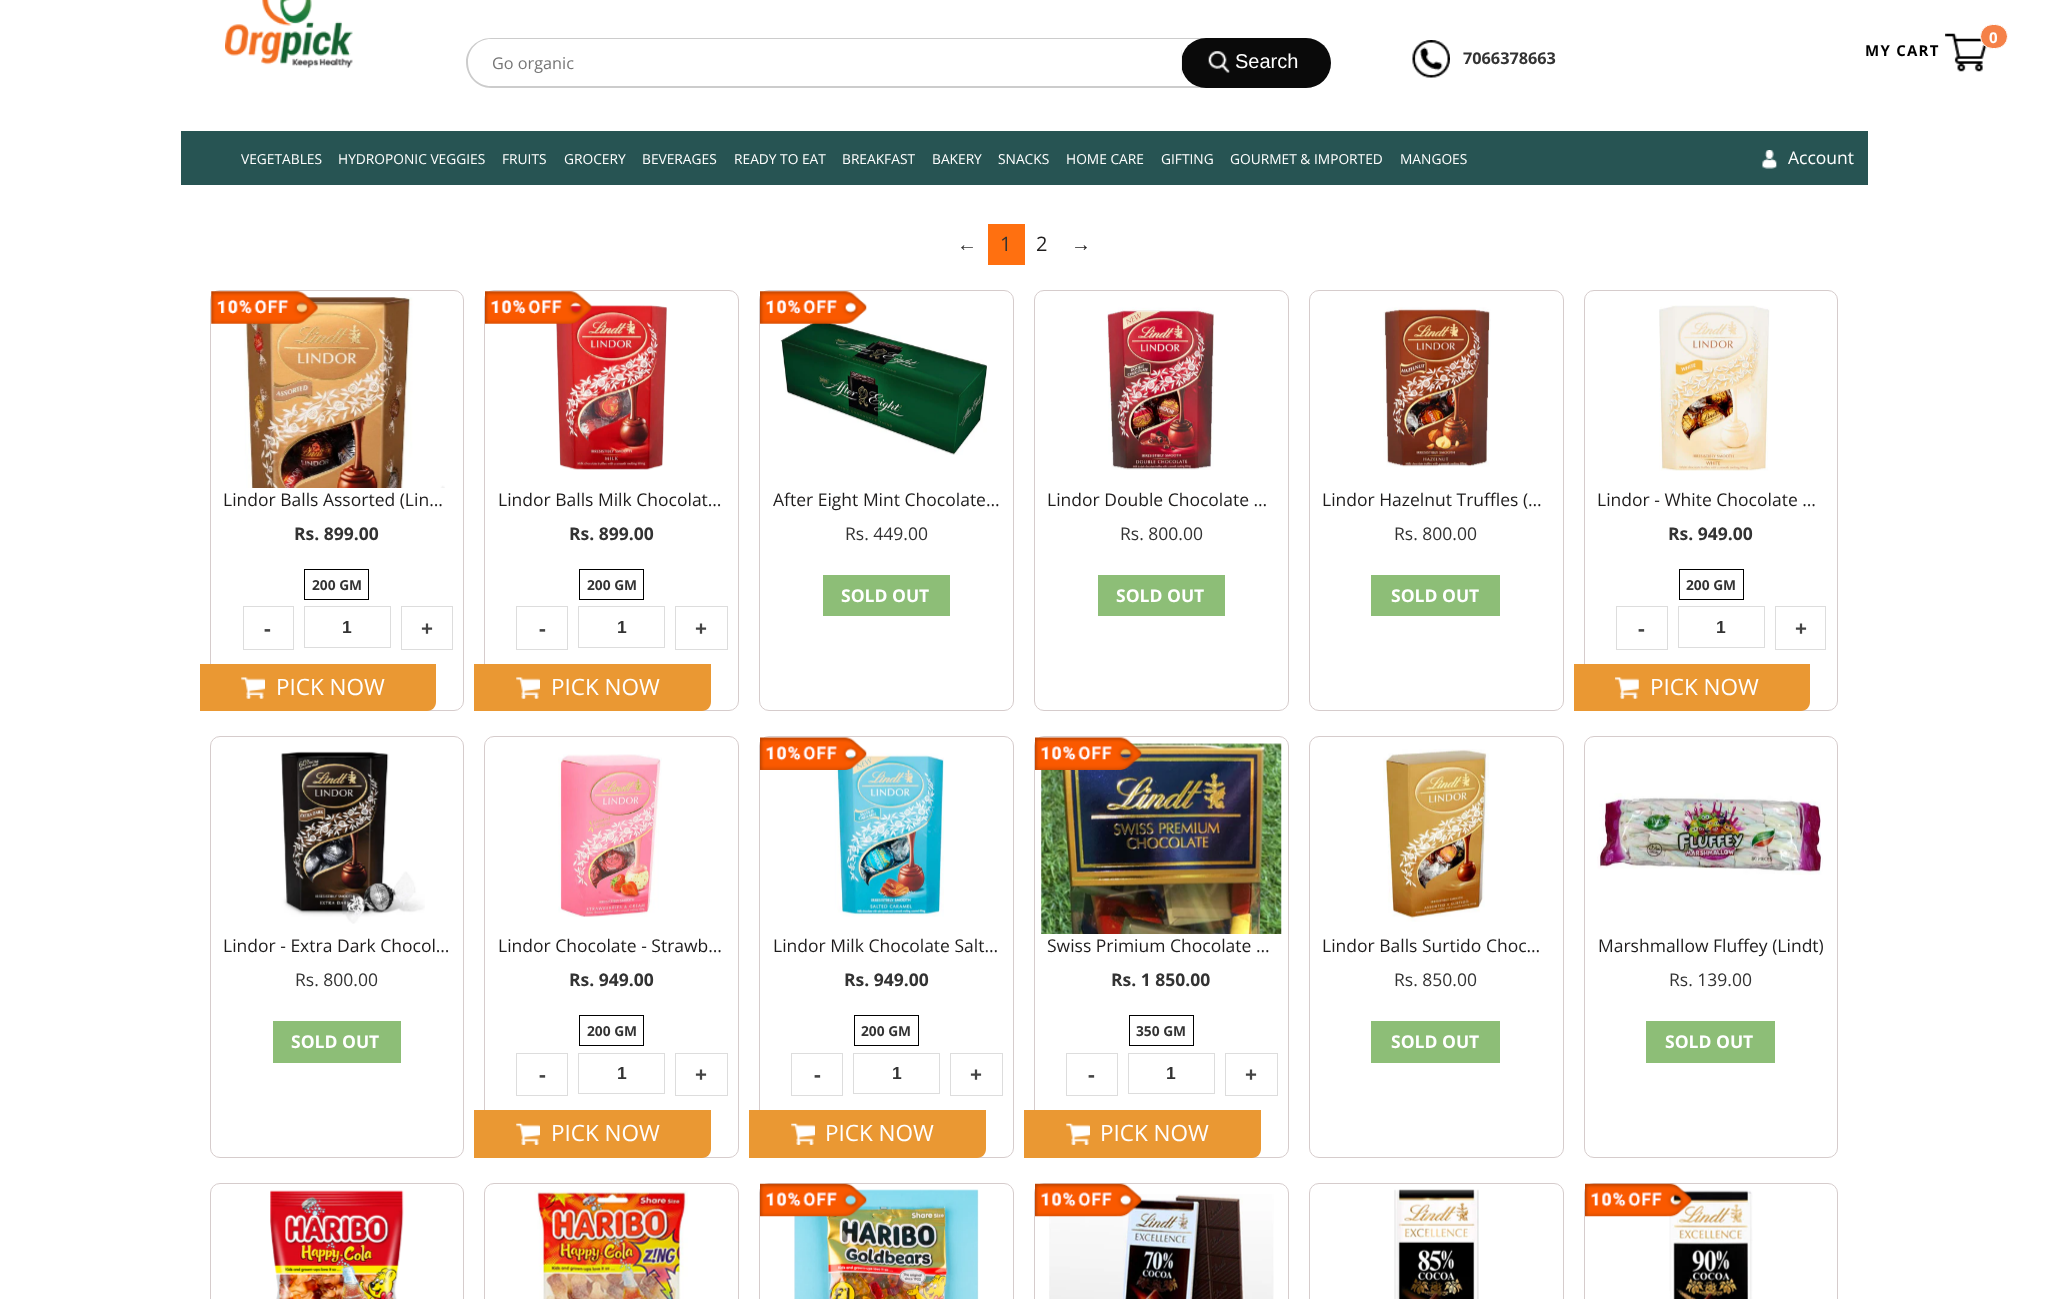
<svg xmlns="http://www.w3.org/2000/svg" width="2047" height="1299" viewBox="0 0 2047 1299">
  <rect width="100%" height="100%" fill="#ffffff"/>
  <image x="225" y="0" width="128" height="68" href="img1.png"/>
  <path d="M491 38H1306C1320 38 1331 49 1331 62C1331 76 1320 88 1306 88H491C477 88 466 76 466 62C466 49 477 38 491 38ZM491 39H1306C1320 39 1331 49 1331 62C1331 76 1320 86 1306 86H491C478 86 468 76 468 62C468 49 478 39 491 39Z" fill="#cccccc" fill-rule="evenodd"/>
  <text x="492" y="69" font-family="Open Sans" font-size="16.25" fill="#757575">Go organic</text>
  <rect x="1181" y="38" width="150" height="50" rx="25" fill="#0a0a0a"/>
  <rect x="1181" y="50" width="1" height="25" fill="#f1f1f1"/>
  <image x="1208" y="51" width="22" height="22" href="img2.png"/>
  <text x="1235" y="68" font-family="Liberation Sans" font-size="20" fill="#ffffff">Search</text>
  <text x="1865" y="56" font-family="Open Sans" font-size="15" font-weight="bold" letter-spacing="1.25" fill="#000000">MY CART</text>
  <image x="1945" y="33" width="42" height="39" href="img3.png"/>
  <rect x="1980.5" y="24.5" width="27" height="24" rx="12" fill="#f58148" stroke="#ffffff"/>
  <text x="1989" y="43" font-family="Open Sans" font-size="15" font-weight="bold" letter-spacing="1.25" fill="#ffffff">0</text>
  <image x="1412" y="40" width="38" height="38" href="img4.png"/>
  <text x="1463" y="64" font-family="Open Sans" font-size="16.25" font-weight="bold" fill="#333333">7066378663</text>
  <rect x="181" y="131" width="1687" height="54" fill="#275453"/>
  <text x="241" y="164" font-family="Open Sans" font-size="13.75" fill="#ffffff">VEGETABLES</text>
  <text x="338" y="164" font-family="Open Sans" font-size="13.75" fill="#ffffff">HYDROPONIC VEGGIES</text>
  <text x="502" y="164" font-family="Open Sans" font-size="13.75" fill="#ffffff">FRUITS</text>
  <text x="564" y="164" font-family="Open Sans" font-size="13.75" fill="#ffffff">GROCERY</text>
  <text x="642" y="164" font-family="Open Sans" font-size="13.75" fill="#ffffff">BEVERAGES</text>
  <text x="734" y="164" font-family="Open Sans" font-size="13.75" fill="#ffffff">READY TO EAT</text>
  <text x="842" y="164" font-family="Open Sans" font-size="13.75" fill="#ffffff">BREAKFAST</text>
  <text x="932" y="164" font-family="Open Sans" font-size="13.75" fill="#ffffff">BAKERY</text>
  <text x="998" y="164" font-family="Open Sans" font-size="13.75" fill="#ffffff">SNACKS</text>
  <text x="1066" y="164" font-family="Open Sans" font-size="13.75" fill="#ffffff">HOME CARE</text>
  <text x="1161" y="164" font-family="Open Sans" font-size="13.75" fill="#ffffff">GIFTING</text>
  <text x="1230" y="164" font-family="Open Sans" font-size="13.75" fill="#ffffff">GOURMET &amp; IMPORTED</text>
  <text x="1400" y="164" font-family="Open Sans" font-size="13.75" fill="#ffffff">MANGOES</text>
  <image x="1762" y="150" width="15" height="19" href="img5.png"/>
  <text x="1788" y="164" font-family="Open Sans" font-size="17.5" fill="#ffffff">Account</text>
  <text x="957" y="251" font-family="Liberation Sans" font-size="20" fill="#333333">←</text>
  <rect x="988" y="224" width="37" height="41" fill="#ff7010"/>
  <text x="1000" y="251" font-family="Open Sans" font-size="20" fill="#333333">1</text>
  <text x="1036" y="251" font-family="Open Sans" font-size="20" fill="#1f1d1d">2</text>
  <text x="1071" y="251" font-family="Liberation Sans" font-size="20" fill="#1f1d1d">→</text>
  <rect x="210.5" y="290.5" width="253" height="420" rx="9.5" fill="none" stroke="#d6cccc"/>
  <image x="244" y="297" width="201" height="191" href="img6.png"/>
  <text x="223" y="506" font-family="Open Sans" font-size="17.5" fill="#1f1d1d">Lindor Balls Assorted (Lin…</text>
  <image x="211" y="291" width="107" height="33" href="img7.png"/>
  <text x="294" y="540" font-family="Open Sans" font-size="17.5" font-weight="bold" fill="#333333">Rs. 899.00</text>
  <rect x="304.5" y="569.5" width="64" height="30" fill="none" stroke="#000000"/>
  <text x="312" y="590" font-family="Open Sans" font-size="13.75" font-weight="bold" fill="#333333">200 GM</text>
  <rect x="243.5" y="606.5" width="50" height="43" fill="none" stroke="#dddddd"/>
  <text x="264" y="636" font-family="Open Sans" font-size="21" font-weight="bold" fill="#444444">-</text>
  <rect x="304.5" y="606.5" width="86" height="41" fill="none" stroke="#dddddd"/>
  <text x="342" y="633" font-family="Liberation Sans" font-size="17.5" font-weight="bold" fill="#333333">1</text>
  <rect x="401.5" y="606.5" width="51" height="43" fill="none" stroke="#dddddd"/>
  <text x="421" y="636" font-family="Open Sans" font-size="21" font-weight="bold" fill="#444444">+</text>
  <path d="M200 664H436V702C436 707 432 711 427 711H200Z" fill="#ea9833"/>
  <image x="241" y="677" width="24" height="22" href="img8.png"/>
  <text x="276" y="695" font-family="Open Sans" font-size="22.5" fill="#ffffff">PICK NOW</text>
  <rect x="484.5" y="290.5" width="254" height="420" rx="9.5" fill="none" stroke="#d6cccc"/>
  <image x="556" y="305" width="111" height="165" href="img9.png"/>
  <text x="498" y="506" font-family="Open Sans" font-size="17.5" fill="#1f1d1d">Lindor Balls Milk Chocolat…</text>
  <image x="485" y="291" width="107" height="33" href="img10.png"/>
  <text x="569" y="540" font-family="Open Sans" font-size="17.5" font-weight="bold" fill="#333333">Rs. 899.00</text>
  <rect x="579.5" y="569.5" width="64" height="30" fill="none" stroke="#000000"/>
  <text x="587" y="590" font-family="Open Sans" font-size="13.75" font-weight="bold" fill="#333333">200 GM</text>
  <rect x="516.5" y="606.5" width="51" height="43" fill="none" stroke="#dddddd"/>
  <text x="539" y="636" font-family="Open Sans" font-size="21" font-weight="bold" fill="#444444">-</text>
  <rect x="578.5" y="606.5" width="86" height="41" fill="none" stroke="#dddddd"/>
  <text x="617" y="633" font-family="Liberation Sans" font-size="17.5" font-weight="bold" fill="#333333">1</text>
  <rect x="675.5" y="606.5" width="52" height="43" fill="none" stroke="#dddddd"/>
  <text x="695" y="636" font-family="Open Sans" font-size="21" font-weight="bold" fill="#444444">+</text>
  <path d="M474 664H711V702C711 707 707 711 702 711H474Z" fill="#ea9833"/>
  <image x="516" y="677" width="24" height="22" href="img11.png"/>
  <text x="551" y="695" font-family="Open Sans" font-size="22.5" fill="#ffffff">PICK NOW</text>
  <rect x="759.5" y="290.5" width="254" height="420" rx="9.5" fill="none" stroke="#d6cccc"/>
  <image x="780" y="319" width="207" height="136" href="img12.png"/>
  <text x="773" y="506" font-family="Open Sans" font-size="17.5" fill="#1f1d1d">After Eight Mint Chocolate…</text>
  <image x="760" y="291" width="107" height="33" href="img13.png"/>
  <text x="845" y="540" font-family="Open Sans" font-size="17.5" fill="#333333">Rs. 449.00</text>
  <rect x="823" y="575" width="127" height="41" fill="#8dbe77"/>
  <text x="841" y="602" font-family="Open Sans" font-size="17.5" font-weight="bold" fill="#ffffff">SOLD OUT</text>
  <rect x="1034.5" y="290.5" width="254" height="420" rx="9.5" fill="none" stroke="#d6cccc"/>
  <image x="1107" y="307" width="107" height="163" href="img14.png"/>
  <text x="1047" y="506" font-family="Open Sans" font-size="17.5" fill="#1f1d1d">Lindor Double Chocolate …</text>
  <text x="1120" y="540" font-family="Open Sans" font-size="17.5" fill="#333333">Rs. 800.00</text>
  <rect x="1098" y="575" width="127" height="41" fill="#8dbe77"/>
  <text x="1116" y="602" font-family="Open Sans" font-size="17.5" font-weight="bold" fill="#ffffff">SOLD OUT</text>
  <rect x="1309.5" y="290.5" width="254" height="420" rx="9.5" fill="none" stroke="#d6cccc"/>
  <image x="1383" y="307" width="108" height="160" href="img15.png"/>
  <text x="1322" y="506" font-family="Open Sans" font-size="17.5" fill="#1f1d1d">Lindor Hazelnut Truffles (…</text>
  <text x="1394" y="540" font-family="Open Sans" font-size="17.5" fill="#333333">Rs. 800.00</text>
  <rect x="1371" y="575" width="129" height="41" fill="#8dbe77"/>
  <text x="1391" y="602" font-family="Open Sans" font-size="17.5" font-weight="bold" fill="#ffffff">SOLD OUT</text>
  <rect x="1584.5" y="290.5" width="253" height="420" rx="9.5" fill="none" stroke="#d6cccc"/>
  <image x="1659" y="305" width="111" height="166" href="img16.png"/>
  <text x="1597" y="506" font-family="Open Sans" font-size="17.5" fill="#1f1d1d">Lindor - White Chocolate …</text>
  <text x="1668" y="540" font-family="Open Sans" font-size="17.5" font-weight="bold" fill="#333333">Rs. 949.00</text>
  <rect x="1679.5" y="569.5" width="64" height="30" fill="none" stroke="#000000"/>
  <text x="1686" y="590" font-family="Open Sans" font-size="13.75" font-weight="bold" fill="#333333">200 GM</text>
  <rect x="1616.5" y="606.5" width="51" height="43" fill="none" stroke="#dddddd"/>
  <text x="1638" y="636" font-family="Open Sans" font-size="21" font-weight="bold" fill="#444444">-</text>
  <rect x="1678.5" y="606.5" width="86" height="41" fill="none" stroke="#dddddd"/>
  <text x="1716" y="633" font-family="Liberation Sans" font-size="17.5" font-weight="bold" fill="#333333">1</text>
  <rect x="1775.5" y="606.5" width="50" height="43" fill="none" stroke="#dddddd"/>
  <text x="1795" y="636" font-family="Open Sans" font-size="21" font-weight="bold" fill="#444444">+</text>
  <path d="M1574 664H1810V702C1810 707 1806 711 1801 711H1574Z" fill="#ea9833"/>
  <image x="1615" y="677" width="24" height="22" href="img17.png"/>
  <text x="1650" y="695" font-family="Open Sans" font-size="22.5" fill="#ffffff">PICK NOW</text>
  <rect x="210.5" y="736.5" width="253" height="421" rx="9.5" fill="none" stroke="#d6cccc"/>
  <image x="281" y="751" width="144" height="173" href="img18.png"/>
  <text x="223" y="952" font-family="Open Sans" font-size="17.5" fill="#1f1d1d">Lindor - Extra Dark Chocol…</text>
  <text x="295" y="986" font-family="Open Sans" font-size="17.5" fill="#333333">Rs. 800.00</text>
  <rect x="273" y="1021" width="128" height="42" fill="#8dbe77"/>
  <text x="291" y="1048" font-family="Open Sans" font-size="17.5" font-weight="bold" fill="#ffffff">SOLD OUT</text>
  <rect x="484.5" y="736.5" width="254" height="421" rx="9.5" fill="none" stroke="#d6cccc"/>
  <image x="558" y="754" width="104" height="163" href="img19.png"/>
  <text x="498" y="952" font-family="Open Sans" font-size="17.5" fill="#1f1d1d">Lindor Chocolate - Strawb…</text>
  <text x="569" y="986" font-family="Open Sans" font-size="17.5" font-weight="bold" fill="#333333">Rs. 949.00</text>
  <rect x="579.5" y="1015.5" width="64" height="30" fill="none" stroke="#000000"/>
  <text x="587" y="1036" font-family="Open Sans" font-size="13.75" font-weight="bold" fill="#333333">200 GM</text>
  <rect x="516.5" y="1053.5" width="51" height="42" fill="none" stroke="#dddddd"/>
  <text x="539" y="1082" font-family="Open Sans" font-size="21" font-weight="bold" fill="#444444">-</text>
  <rect x="578.5" y="1053.5" width="86" height="40" fill="none" stroke="#dddddd"/>
  <text x="617" y="1079" font-family="Liberation Sans" font-size="17.5" font-weight="bold" fill="#333333">1</text>
  <rect x="675.5" y="1053.5" width="52" height="42" fill="none" stroke="#dddddd"/>
  <text x="695" y="1082" font-family="Open Sans" font-size="21" font-weight="bold" fill="#444444">+</text>
  <path d="M474 1110H711V1149C711 1154 707 1158 702 1158H474Z" fill="#ea9833"/>
  <image x="516" y="1123" width="24" height="22" href="img20.png"/>
  <text x="551" y="1141" font-family="Open Sans" font-size="22.5" fill="#ffffff">PICK NOW</text>
  <rect x="759.5" y="736.5" width="254" height="421" rx="9.5" fill="none" stroke="#d6cccc"/>
  <image x="834" y="753" width="110" height="164" href="img21.png"/>
  <text x="773" y="952" font-family="Open Sans" font-size="17.5" fill="#1f1d1d">Lindor Milk Chocolate Salt…</text>
  <image x="760" y="737" width="107" height="33" href="img22.png"/>
  <text x="844" y="986" font-family="Open Sans" font-size="17.5" font-weight="bold" fill="#333333">Rs. 949.00</text>
  <rect x="854.5" y="1015.5" width="64" height="30" fill="none" stroke="#000000"/>
  <text x="861" y="1036" font-family="Open Sans" font-size="13.75" font-weight="bold" fill="#333333">200 GM</text>
  <rect x="791.5" y="1053.5" width="51" height="42" fill="none" stroke="#dddddd"/>
  <text x="814" y="1082" font-family="Open Sans" font-size="21" font-weight="bold" fill="#444444">-</text>
  <rect x="853.5" y="1053.5" width="86" height="40" fill="none" stroke="#dddddd"/>
  <text x="892" y="1079" font-family="Liberation Sans" font-size="17.5" font-weight="bold" fill="#333333">1</text>
  <rect x="950.5" y="1053.5" width="52" height="42" fill="none" stroke="#dddddd"/>
  <text x="970" y="1082" font-family="Open Sans" font-size="21" font-weight="bold" fill="#444444">+</text>
  <path d="M749 1110H986V1149C986 1154 982 1158 977 1158H749Z" fill="#ea9833"/>
  <image x="791" y="1123" width="24" height="22" href="img20.png"/>
  <text x="825" y="1141" font-family="Open Sans" font-size="22.5" fill="#ffffff">PICK NOW</text>
  <rect x="1034.5" y="736.5" width="254" height="421" rx="9.5" fill="none" stroke="#d6cccc"/>
  <image x="1041" y="743" width="241" height="191" href="img23.png"/>
  <text x="1047" y="952" font-family="Open Sans" font-size="17.5" fill="#1f1d1d">Swiss Primium Chocolate …</text>
  <image x="1035" y="737" width="107" height="33" href="img24.png"/>
  <text x="1111" y="986" font-family="Open Sans" font-size="17.5" font-weight="bold" fill="#333333">Rs. 1 850.00</text>
  <rect x="1129.5" y="1015.5" width="64" height="30" fill="none" stroke="#000000"/>
  <text x="1136" y="1036" font-family="Open Sans" font-size="13.75" font-weight="bold" fill="#333333">350 GM</text>
  <rect x="1066.5" y="1053.5" width="51" height="42" fill="none" stroke="#dddddd"/>
  <text x="1088" y="1082" font-family="Open Sans" font-size="21" font-weight="bold" fill="#444444">-</text>
  <rect x="1128.5" y="1053.5" width="86" height="40" fill="none" stroke="#dddddd"/>
  <text x="1166" y="1079" font-family="Liberation Sans" font-size="17.5" font-weight="bold" fill="#333333">1</text>
  <rect x="1225.5" y="1053.5" width="52" height="42" fill="none" stroke="#dddddd"/>
  <text x="1245" y="1082" font-family="Open Sans" font-size="21" font-weight="bold" fill="#444444">+</text>
  <path d="M1024 1110H1261V1149C1261 1154 1257 1158 1252 1158H1024Z" fill="#ea9833"/>
  <image x="1066" y="1123" width="24" height="22" href="img20.png"/>
  <text x="1100" y="1141" font-family="Open Sans" font-size="22.5" fill="#ffffff">PICK NOW</text>
  <rect x="1309.5" y="736.5" width="254" height="421" rx="9.5" fill="none" stroke="#d6cccc"/>
  <image x="1383" y="749" width="106" height="173" href="img25.png"/>
  <text x="1322" y="952" font-family="Open Sans" font-size="17.5" fill="#1f1d1d">Lindor Balls Surtido Choc…</text>
  <text x="1394" y="986" font-family="Open Sans" font-size="17.5" fill="#333333">Rs. 850.00</text>
  <rect x="1371" y="1021" width="129" height="42" fill="#8dbe77"/>
  <text x="1391" y="1048" font-family="Open Sans" font-size="17.5" font-weight="bold" fill="#ffffff">SOLD OUT</text>
  <rect x="1584.5" y="736.5" width="253" height="421" rx="9.5" fill="none" stroke="#d6cccc"/>
  <image x="1597" y="793" width="226" height="82" href="img26.png"/>
  <text x="1598" y="952" font-family="Open Sans" font-size="17.5" fill="#1f1d1d">Marshmallow Fluffey (Lindt)</text>
  <text x="1669" y="986" font-family="Open Sans" font-size="17.5" fill="#333333">Rs. 139.00</text>
  <rect x="1646" y="1021" width="129" height="42" fill="#8dbe77"/>
  <text x="1665" y="1048" font-family="Open Sans" font-size="17.5" font-weight="bold" fill="#ffffff">SOLD OUT</text>
  <rect x="210.5" y="1183.5" width="253" height="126" rx="9.5" fill="none" stroke="#d6cccc"/>
  <image x="270" y="1190" width="134" height="109" href="img27.png"/>
  <rect x="484.5" y="1183.5" width="254" height="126" rx="9.5" fill="none" stroke="#d6cccc"/>
  <image x="534" y="1190" width="154" height="109" href="img28.png"/>
  <rect x="759.5" y="1183.5" width="254" height="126" rx="9.5" fill="none" stroke="#d6cccc"/>
  <image x="794" y="1189" width="185" height="110" href="img30.png"/>
  <image x="760" y="1183" width="107" height="34" href="img29.png"/>
  <rect x="1034.5" y="1183.5" width="254" height="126" rx="9.5" fill="none" stroke="#d6cccc"/>
  <image x="1049" y="1194" width="225" height="105" href="img32.png"/>
  <image x="1035" y="1183" width="107" height="34" href="img31.png"/>
  <rect x="1309.5" y="1183.5" width="254" height="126" rx="9.5" fill="none" stroke="#d6cccc"/>
  <image x="1394" y="1189" width="85" height="110" href="img33.png"/>
  <rect x="1584.5" y="1183.5" width="253" height="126" rx="9.5" fill="none" stroke="#d6cccc"/>
  <image x="1669" y="1190" width="84" height="109" href="img35.png"/>
  <image x="1585" y="1183" width="107" height="34" href="img34.png"/>
</svg>
